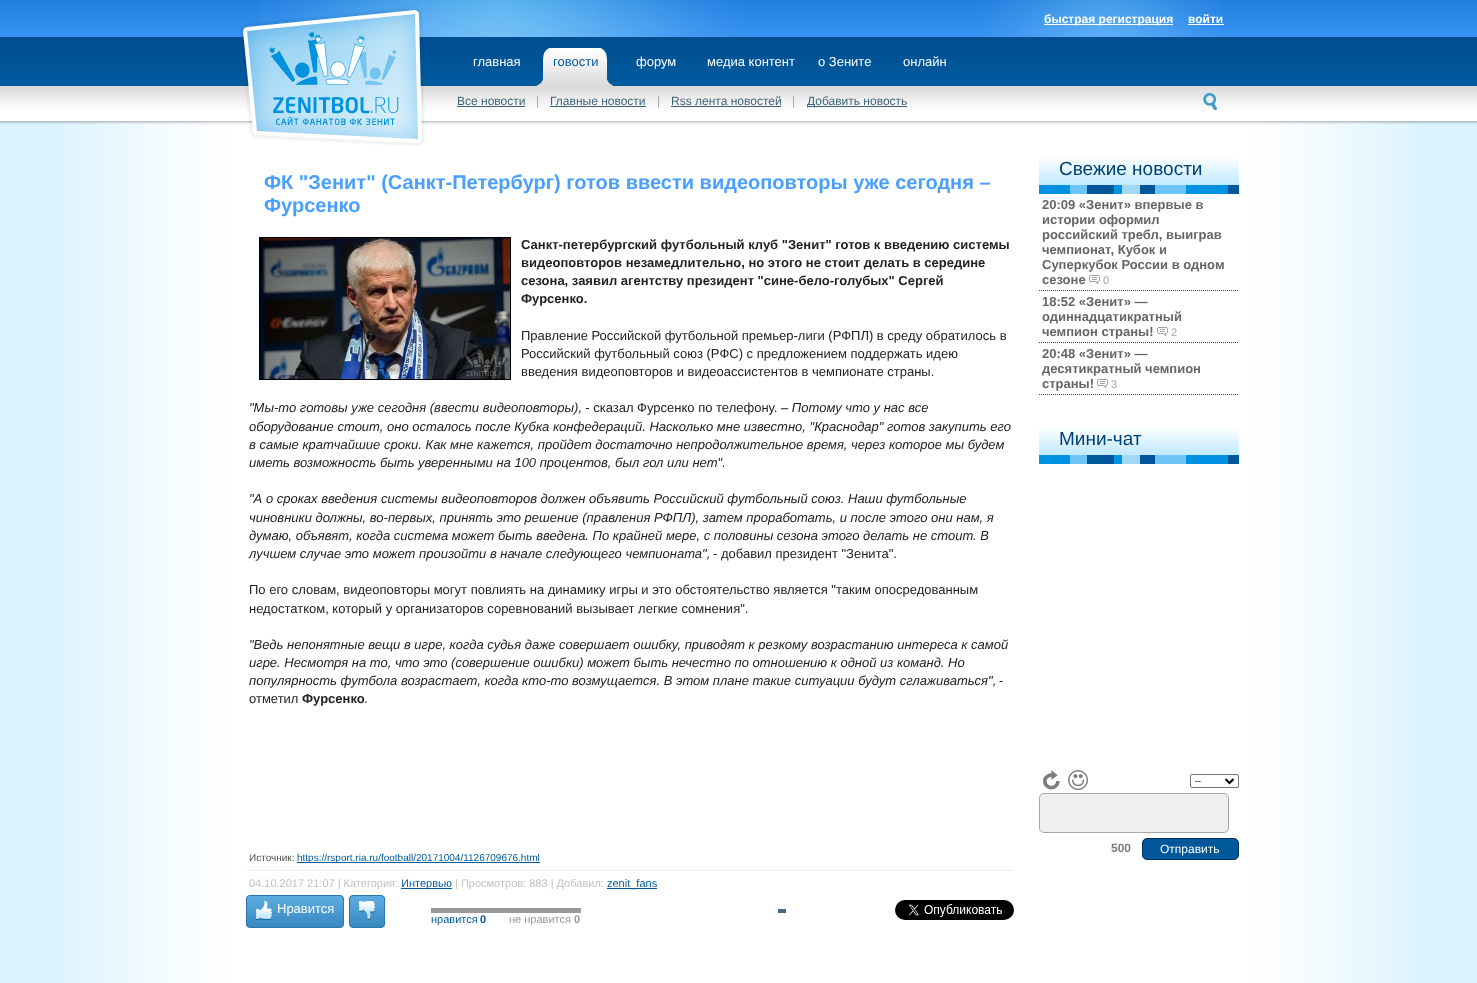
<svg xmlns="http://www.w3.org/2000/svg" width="1477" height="983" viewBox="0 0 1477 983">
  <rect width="100%" height="100%" fill="#dbf3ff"/>
  <image x="62" y="121" width="1353" height="862" href="img1.png"/>
  <image x="0" y="0" width="1477" height="124" href="img2.png"/>
  <image x="260" y="0" width="959" height="37" href="img3.png"/>
  <image x="240" y="7" width="185" height="139" href="img4.png"/>
  <rect x="1044" y="24" width="129" height="1" fill="#ffffff"/>
  <text x="1044" y="23" font-family="Liberation Sans" font-size="12" font-weight="bold" fill="#ffffff">быстрая регистрация</text>
  <text x="1188" y="23" font-family="Liberation Sans" font-size="12" font-weight="bold" fill="#ffffff">войти</text>
  <rect x="1188" y="24" width="36" height="1" fill="#ffffff"/>
  <text x="473" y="66" font-family="Liberation Sans" font-size="13" fill="#ffffff">главная</text>
  <image x="537" y="48" width="13" height="38" href="img5.png"/>
  <image x="550" y="48" width="50" height="38" href="img6.png"/>
  <text x="553" y="66" font-family="Liberation Sans" font-size="13" fill="#00599c">говости</text>
  <image x="600" y="48" width="13" height="38" href="img7.png"/>
  <text x="636" y="66" font-family="Liberation Sans" font-size="13" fill="#ffffff">форум</text>
  <text x="707" y="66" font-family="Liberation Sans" font-size="13" fill="#ffffff">медиа контент</text>
  <text x="818" y="66" font-family="Liberation Sans" font-size="13" fill="#ffffff">о Зените</text>
  <text x="903" y="66" font-family="Liberation Sans" font-size="13" fill="#ffffff">онлайн</text>
  <text x="457" y="105" font-family="Liberation Sans" font-size="12" fill="#3e6377">Все новости</text>
  <rect x="457" y="106" width="68" height="1" fill="#3e6377"/>
  <text x="536" y="105" font-family="Liberation Sans" font-size="12" fill="#a5a5a5">|</text>
  <text x="550" y="105" font-family="Liberation Sans" font-size="12" fill="#3e6377">Главные новости</text>
  <rect x="550" y="106" width="96" height="1" fill="#3e6377"/>
  <text x="657" y="105" font-family="Liberation Sans" font-size="12" fill="#a5a5a5">|</text>
  <text x="671" y="105" font-family="Liberation Sans" font-size="12" fill="#3e6377">Rss лента новостей</text>
  <rect x="671" y="106" width="110" height="1" fill="#3e6377"/>
  <text x="792" y="105" font-family="Liberation Sans" font-size="12" fill="#a5a5a5">|</text>
  <rect x="807" y="106" width="100" height="1" fill="#3e6377"/>
  <text x="807" y="105" font-family="Liberation Sans" font-size="12" fill="#3e6377">Добавить новость</text>
  <image x="1203" y="93" width="14" height="17" href="img8.png"/>
  <text x="264" y="189" font-family="Liberation Sans" font-size="20" font-weight="bold" fill="#489fff">ФК "Зенит" (Санкт-Петербург) готов ввести видеоповторы уже сегодня –</text>
  <text x="264" y="212" font-family="Liberation Sans" font-size="20" font-weight="bold" fill="#489fff">Фурсенко</text>
  <rect x="259.5" y="237.5" width="251" height="142" fill="none" stroke="#000000"/>
  <image x="260" y="238" width="250" height="141" href="img9.png"/>
  <text x="521" y="249" font-family="Liberation Sans" font-size="13" font-weight="bold" fill="#222222">Санкт-петербургский футбольный клуб "Зенит" готов к введению системы</text>
  <text x="521" y="267" font-family="Liberation Sans" font-size="13" font-weight="bold" fill="#222222">видеоповторов незамедлительно, но этого не стоит делать в середине</text>
  <text x="521" y="285" font-family="Liberation Sans" font-size="13" font-weight="bold" fill="#222222">сезона, заявил агентству президент "сине-бело-голубых" Сергей</text>
  <text x="521" y="303" font-family="Liberation Sans" font-size="13" font-weight="bold" fill="#222222">Фурсенко.</text>
  <text x="521" y="340" font-family="Liberation Sans" font-size="13" fill="#222222">Правление Российской футбольной премьер-лиги (РФПЛ) в среду обратилось в</text>
  <text x="521" y="358" font-family="Liberation Sans" font-size="13" fill="#222222">Российский футбольный союз (РФС) с предложением поддержать идею</text>
  <text x="521" y="376" font-family="Liberation Sans" font-size="13" fill="#222222">введения видеоповторов и видеоассистентов в чемпионате страны.</text>
  <text x="249" y="412" font-family="Liberation Sans" font-size="13" font-style="italic" fill="#222222">"Мы-то готовы уже сегодня (ввести видеоповторы)</text>
  <text x="578" y="412" font-family="Liberation Sans" font-size="13" fill="#222222">, - сказал Фурсенко по телефону.</text>
  <text x="781" y="412" font-family="Liberation Sans" font-size="13" font-style="italic" fill="#222222">– Потому что у нас все</text>
  <text x="249" y="431" font-family="Liberation Sans" font-size="13" font-style="italic" fill="#222222">оборудование стоит, оно осталось после Кубка конфедераций. Насколько мне известно, "Краснодар" готов закупить его</text>
  <text x="249" y="449" font-family="Liberation Sans" font-size="13" font-style="italic" fill="#222222">в самые кратчайшие сроки. Как мне кажется, пройдет достаточно непродолжительное время, через которое мы будем</text>
  <text x="249" y="467" font-family="Liberation Sans" font-size="13" font-style="italic" fill="#222222">иметь возможность быть уверенными на 100 процентов, был гол или нет".</text>
  <text x="249" y="503" font-family="Liberation Sans" font-size="13" font-style="italic" fill="#222222">"А о сроках введения системы видеоповторов должен объявить Российский футбольный союз. Наши футбольные</text>
  <text x="249" y="522" font-family="Liberation Sans" font-size="13" font-style="italic" fill="#222222">чиновники должны, во-первых, принять это решение (правления РФПЛ), затем проработать, и после этого они нам, я</text>
  <text x="249" y="540" font-family="Liberation Sans" font-size="13" font-style="italic" fill="#222222">думаю, объявят, когда система может быть введена. По крайней мере, с половины сезона этого делать не стоит. В</text>
  <text x="249" y="558" font-family="Liberation Sans" font-size="13" font-style="italic" fill="#222222">лучшем случае это может произойти в начале следующего чемпионата",</text>
  <text x="713" y="558" font-family="Liberation Sans" font-size="13" fill="#222222">- добавил президент "Зенита".</text>
  <text x="249" y="594" font-family="Liberation Sans" font-size="13" fill="#222222">По его словам, видеоповторы могут повлиять на динамику игры и это обстоятельство является "таким опосредованным</text>
  <text x="249" y="613" font-family="Liberation Sans" font-size="13" fill="#222222">недостатком, который у организаторов соревнований вызывает легкие сомнения".</text>
  <text x="249" y="649" font-family="Liberation Sans" font-size="13" font-style="italic" fill="#222222">"Ведь непонятные вещи в игре, когда судья даже совершает ошибку, приводят к резкому возрастанию интереса к самой</text>
  <text x="249" y="667" font-family="Liberation Sans" font-size="13" font-style="italic" fill="#222222">игре. Несмотря на то, что это (совершение ошибки) может быть нечестно по отношению к одной из команд. Но</text>
  <text x="249" y="685" font-family="Liberation Sans" font-size="13" font-style="italic" fill="#222222">популярность футбола возрастает, когда кто-то возмущается. В этом плане такие ситуации будут сглаживаться",</text>
  <text x="999" y="685" font-family="Liberation Sans" font-size="13" fill="#222222">-</text>
  <text x="249" y="703" font-family="Liberation Sans" font-size="13" fill="#222222">отметил</text>
  <text x="302" y="703" font-family="Liberation Sans" font-size="13" font-weight="bold" fill="#222222">Фурсенко</text>
  <text x="364" y="703" font-family="Liberation Sans" font-size="13" fill="#222222">.</text>
  <text x="249" y="861" font-family="Liberation Sans" font-size="10" fill="#505050">Источник:</text>
  <rect x="297" y="862" width="243" height="1" fill="#00599c"/>
  <text x="297" y="861" font-family="Liberation Sans" font-size="10" fill="#00599c">https://rsport.ria.ru/football/20171004/1126709676.html</text>
  <rect x="247" y="870" width="766" height="1" fill="#eaeaea"/>
  <text x="249" y="887" font-family="Liberation Sans" font-size="11" fill="#c1c1c1">04.10.2017 21:07 | Категория:</text>
  <rect x="401" y="888" width="51" height="1" fill="#00599c"/>
  <text x="401" y="887" font-family="Liberation Sans" font-size="11" fill="#00599c">Интервью</text>
  <text x="455" y="887" font-family="Liberation Sans" font-size="11" fill="#c1c1c1">| Просмотров: 883 | Добавил:</text>
  <rect x="607" y="888" width="50" height="1" fill="#00599c"/>
  <text x="607" y="887" font-family="Liberation Sans" font-size="11" fill="#00599c">zenit_fans</text>
  <image x="246" y="895" width="88" height="33" href="img10.png"/>
  <image x="256" y="901" width="16" height="19" href="img11.png"/>
  <text x="277" y="913" font-family="Liberation Sans" font-size="13" fill="#ffffff">Нравится</text>
  <image x="334" y="895" width="10" height="33" href="img12.png"/>
  <image x="349" y="895" width="26" height="33" href="img13.png"/>
  <image x="359" y="901" width="16" height="19" href="img14.png"/>
  <image x="375" y="895" width="10" height="33" href="img12.png"/>
  <rect x="778" y="909" width="8" height="4" fill="#45688e"/>
  <image x="895" y="900" width="119" height="20" href="img15.png"/>
  <rect x="431" y="908" width="150" height="5" fill="#999999"/>
  <text x="431" y="923" font-family="Liberation Sans" font-size="11" fill="#00599c">нравится</text>
  <text x="480" y="923" font-family="Liberation Sans" font-size="11" font-weight="bold" fill="#00599c">0</text>
  <text x="509" y="923" font-family="Liberation Sans" font-size="11" fill="#999999">не нравится</text>
  <text x="574" y="923" font-family="Liberation Sans" font-size="11" font-weight="bold" fill="#999999">0</text>
  <image x="1039" y="158" width="200" height="36" href="img16.png"/>
  <text x="1059" y="175" font-family="Liberation Sans" font-size="19" fill="#004173">Свежие новости</text>
  <path d="M1039 290.5H1239" fill="none" stroke="#00589b" stroke-dasharray="1 1"/>
  <text x="1042" y="209" font-family="Liberation Sans" font-size="13" font-weight="bold" fill="#656565">20:09 «Зенит» впервые в</text>
  <text x="1042" y="224" font-family="Liberation Sans" font-size="13" font-weight="bold" fill="#656565">истории оформил</text>
  <text x="1042" y="239" font-family="Liberation Sans" font-size="13" font-weight="bold" fill="#656565">российский требл, выиграв</text>
  <text x="1042" y="254" font-family="Liberation Sans" font-size="13" font-weight="bold" fill="#656565">чемпионат, Кубок и</text>
  <text x="1042" y="269" font-family="Liberation Sans" font-size="13" font-weight="bold" fill="#656565">Суперкубок России в одном</text>
  <text x="1042" y="284" font-family="Liberation Sans" font-size="13" font-weight="bold" fill="#656565">сезоне</text>
  <image x="1089" y="275" width="11" height="9" href="img17.png"/>
  <text x="1103" y="284" font-family="Liberation Sans" font-size="11" fill="#a5a5a5">0</text>
  <path d="M1039 342.5H1239" fill="none" stroke="#00589b" stroke-dasharray="1 1"/>
  <text x="1042" y="306" font-family="Liberation Sans" font-size="13" font-weight="bold" fill="#656565">18:52 «Зенит» —</text>
  <text x="1042" y="321" font-family="Liberation Sans" font-size="13" font-weight="bold" fill="#656565">одиннадцатикратный</text>
  <text x="1042" y="336" font-family="Liberation Sans" font-size="13" font-weight="bold" fill="#656565">чемпион страны!</text>
  <image x="1157" y="327" width="11" height="9" href="img17.png"/>
  <text x="1171" y="336" font-family="Liberation Sans" font-size="11" fill="#a5a5a5">2</text>
  <path d="M1039 394.5H1239" fill="none" stroke="#00589b" stroke-dasharray="1 1"/>
  <text x="1042" y="358" font-family="Liberation Sans" font-size="13" font-weight="bold" fill="#656565">20:48 «Зенит» —</text>
  <text x="1042" y="373" font-family="Liberation Sans" font-size="13" font-weight="bold" fill="#656565">десятикратный чемпион</text>
  <text x="1042" y="388" font-family="Liberation Sans" font-size="13" font-weight="bold" fill="#656565">страны!</text>
  <image x="1097" y="379" width="11" height="9" href="img17.png"/>
  <text x="1111" y="388" font-family="Liberation Sans" font-size="11" fill="#a5a5a5">3</text>
  <image x="1039" y="428" width="200" height="36" href="img16.png"/>
  <text x="1059" y="445" font-family="Liberation Sans" font-size="19" fill="#004173">Мини-чат</text>
  <image x="1043" y="770" width="17" height="20" href="img18.png"/>
  <image x="1068" y="770" width="20" height="20" href="img19.png"/>
  <rect x="1190.5" y="774.5" width="48" height="13" rx="1.5" fill="none" stroke="#767676"/>
  <path d="M1225.5 779L1229.5 783L1233.5 779" fill="none" stroke="#000000" stroke-width="2"/>
  <text x="1195" y="784" font-family="Liberation Sans" font-size="9" fill="#000000">--</text>
  <rect x="1039.5" y="793.5" width="189" height="39" rx="4.5" fill="#efefef" stroke="#a7a7a7"/>
  <text x="1111" y="852" font-family="Liberation Sans" font-size="12" font-weight="bold" fill="#7d7d7d">500</text>
  <rect x="1142.5" y="838.5" width="96" height="21" rx="4.5" fill="#00589b" stroke="#003156"/>
  <text x="1160" y="853" font-family="Liberation Sans" font-size="12" fill="#ffffff">Отправить</text>
</svg>
